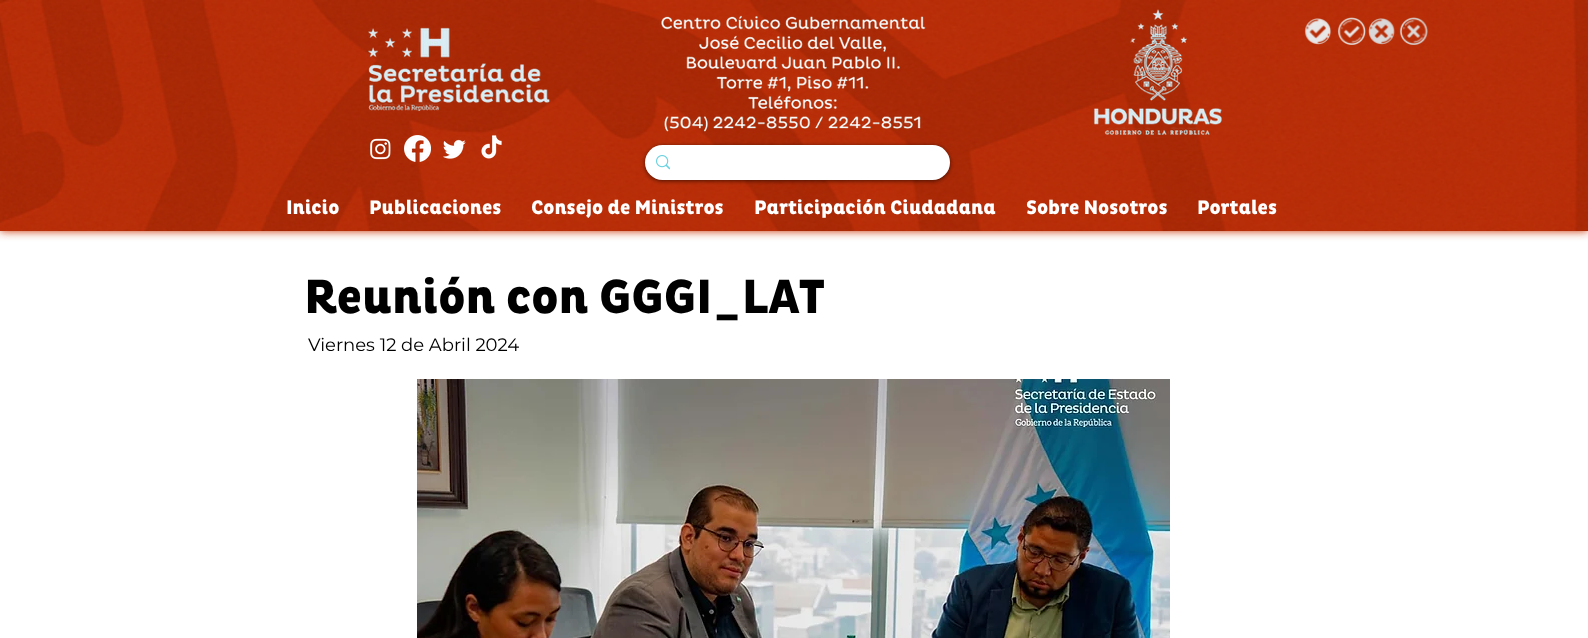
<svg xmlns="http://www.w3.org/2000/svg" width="1588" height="638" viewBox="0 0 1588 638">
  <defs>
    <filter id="blur1" x="-50%" y="-200%" width="200%" height="500%"><feGaussianBlur stdDeviation="5"/></filter>
    <filter id="blur2" x="-50%" y="-200%" width="200%" height="500%"><feGaussianBlur stdDeviation="2"/></filter>
  </defs>
  <rect width="100%" height="100%" fill="#ffffff"/>
  <rect x="0" y="0" width="1588" height="231" fill="#c82f10" filter="url(#blur1)"/>
  <image x="0" y="0" width="1588" height="231" href="img1.png"/>
  <image x="368" y="9" width="856" height="126" href="img2.png"/>
  <image x="1304" y="17" width="124" height="28" href="img3.png"/>
  <image x="370" y="138" width="21" height="22" href="img4.png"/>
  <image x="404" y="135" width="27" height="27" href="img5.png"/>
  <image x="443" y="139" width="23" height="20" href="img6.png"/>
  <image x="481" y="135" width="21" height="24" href="img7.png"/>
  <rect x="645" y="146" width="305" height="35" rx="17.5" fill="#000000" fill-opacity="0.6" filter="url(#blur2)"/>
  <rect x="645" y="145" width="305" height="35" rx="17.5" fill="#ffffff"/>
  <image x="656" y="155" width="14" height="15" href="img8.png"/>
  <text x="286" y="214" font-family="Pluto" font-size="20" font-weight="900" fill="#ffffff">Inicio</text>
  <text x="369" y="214" font-family="Pluto" font-size="20" font-weight="900" fill="#ffffff">Publicaciones</text>
  <text x="531" y="214" font-family="Pluto" font-size="20" font-weight="900" fill="#ffffff">Consejo de Ministros</text>
  <text x="754" y="214" font-family="Pluto" font-size="20" font-weight="900" fill="#ffffff">Participación Ciudadana</text>
  <text x="1026" y="214" font-family="Pluto" font-size="20" font-weight="900" fill="#ffffff">Sobre Nosotros</text>
  <text x="1197" y="214" font-family="Pluto" font-size="20" font-weight="900" fill="#ffffff">Portales</text>
  <text x="304" y="313" font-family="Pluto" font-size="49" font-weight="900" fill="#000000">Reunión con GGGI_LAT</text>
  <text x="308" y="351" font-family="Montserrat" font-size="18" fill="#000000">Viernes 12 de Abril 2024</text>
  <image x="417" y="379" width="753" height="259" href="img9.png"/>
</svg>
